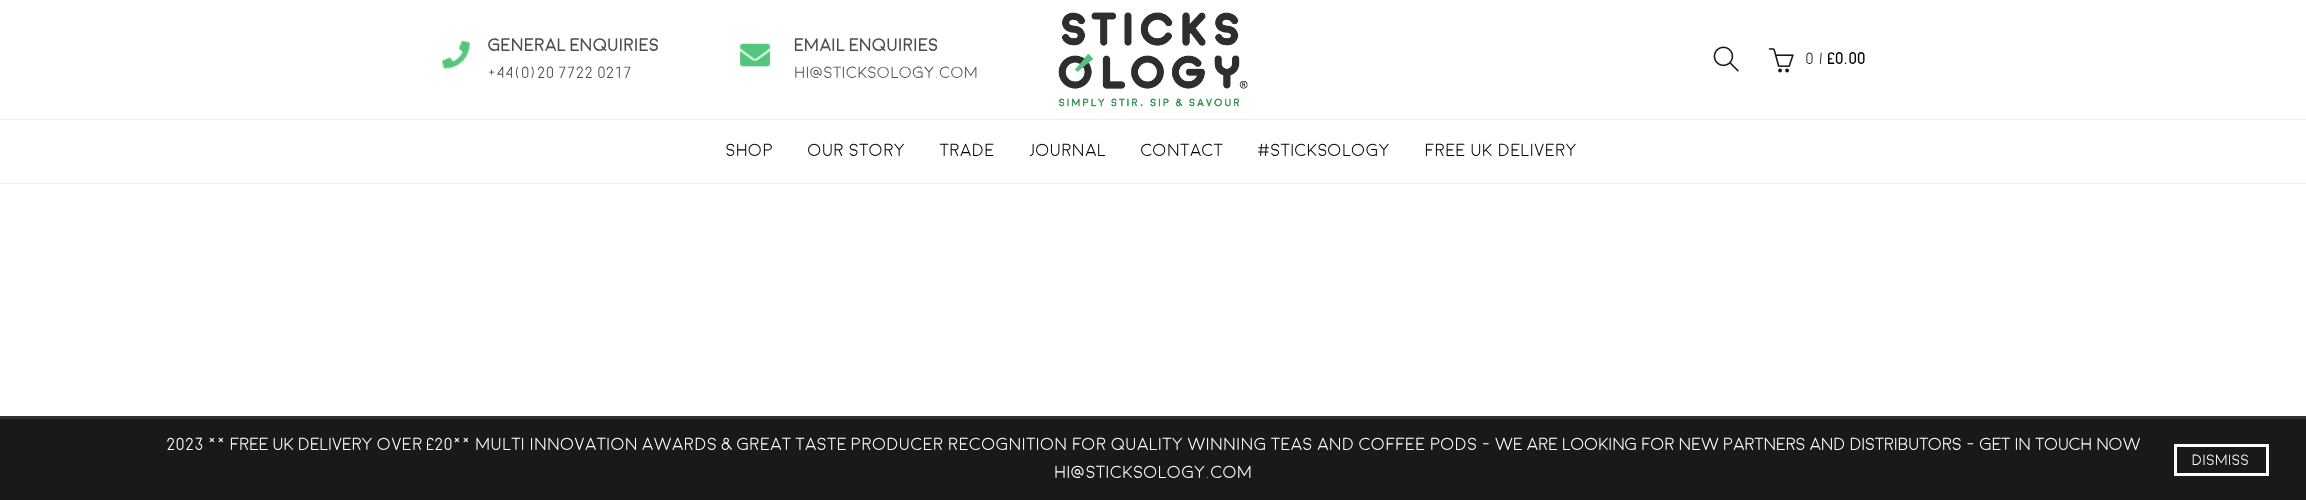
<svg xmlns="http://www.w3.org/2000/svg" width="2306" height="500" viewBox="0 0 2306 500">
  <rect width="100%" height="100%" fill="#ffffff"/>
  <image x="441" y="40" width="29" height="29" href="img1.png"/>
  <text x="488" y="51" font-family="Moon" font-size="17.5" font-weight="bold" fill="#4d4d4d">General Enquiries</text>
  <text x="488" y="78" font-family="Moon" font-size="16.25" font-weight="300" fill="#4d4d4d">+44(0)20 7722 0217</text>
  <image x="739" y="43" width="32" height="24" href="img2.png"/>
  <text x="794" y="51" font-family="Moon" font-size="17.5" font-weight="bold" fill="#4d4d4d">Email Enquiries</text>
  <text x="794" y="78" font-family="Moon" font-size="16.25" font-weight="300" fill="#4d4d4d">hi@sticksology.com</text>
  <image x="1058" y="12" width="190" height="95" href="img3.png"/>
  <image x="1713" y="46" width="26" height="26" href="img4.png"/>
  <image x="1768" y="48" width="26" height="25" href="img5.png"/>
  <text x="1805" y="64" font-family="Moon" font-size="16.25" font-weight="300" fill="#1a1a1a">0 /</text>
  <text x="1828" y="64" font-family="Moon" font-size="16.25" font-weight="bold" fill="#000000">£0.00</text>
  <rect x="0" y="119" width="2306" height="1" fill="#eeeeee"/>
  <rect x="0" y="183" width="2306" height="1" fill="#eeeeee"/>
  <text x="726" y="156" font-family="Moon" font-size="17.5" font-weight="300" letter-spacing="0.6" fill="#000000">SHOP</text>
  <text x="808" y="156" font-family="Moon" font-size="17.5" font-weight="300" letter-spacing="0.6" fill="#000000">OUR STORY</text>
  <text x="940" y="156" font-family="Moon" font-size="17.5" font-weight="300" letter-spacing="0.6" fill="#000000">TRADE</text>
  <text x="1030" y="156" font-family="Moon" font-size="17.5" font-weight="300" letter-spacing="0.6" fill="#000000">JOURNAL</text>
  <text x="1141" y="156" font-family="Moon" font-size="17.5" font-weight="300" letter-spacing="0.6" fill="#000000">CONTACT</text>
  <text x="1258" y="156" font-family="Moon" font-size="17.5" font-weight="300" letter-spacing="0.6" fill="#000000">#STICKSOLOGY</text>
  <text x="1425" y="156" font-family="Moon" font-size="17.5" font-weight="300" letter-spacing="0.6" fill="#000000">FREE UK DELIVERY</text>
  <rect x="0" y="416" width="2306" height="84" fill="#000000" fill-opacity="0.9"/>
  <rect x="0" y="416" width="2306" height="3" fill="#ffffff" fill-opacity="0.1"/>
  <text x="166" y="450" font-family="Moon" font-size="17.5" font-weight="300" fill="#ffffff">2023 ** FREE UK DELIVERY over £20** multi innovation Awards &amp; Great Taste Producer recognition for quality winning teas and coffee pods - WE ARE LOOKING FOR NEW PARTNERS AND DISTRIBUTORS - GET IN TOUCH NOW</text>
  <rect x="2175.5" y="445.5" width="92" height="29" fill="none" stroke="#ffffff" stroke-width="3"/>
  <text x="2192" y="465" font-family="Moon" font-size="15" font-weight="300" letter-spacing="0.5" fill="#ffffff">DISMISS</text>
  <text x="1054" y="478" font-family="Moon" font-size="17.5" font-weight="300" fill="#ffffff">hi@sticksology.com</text>
</svg>
